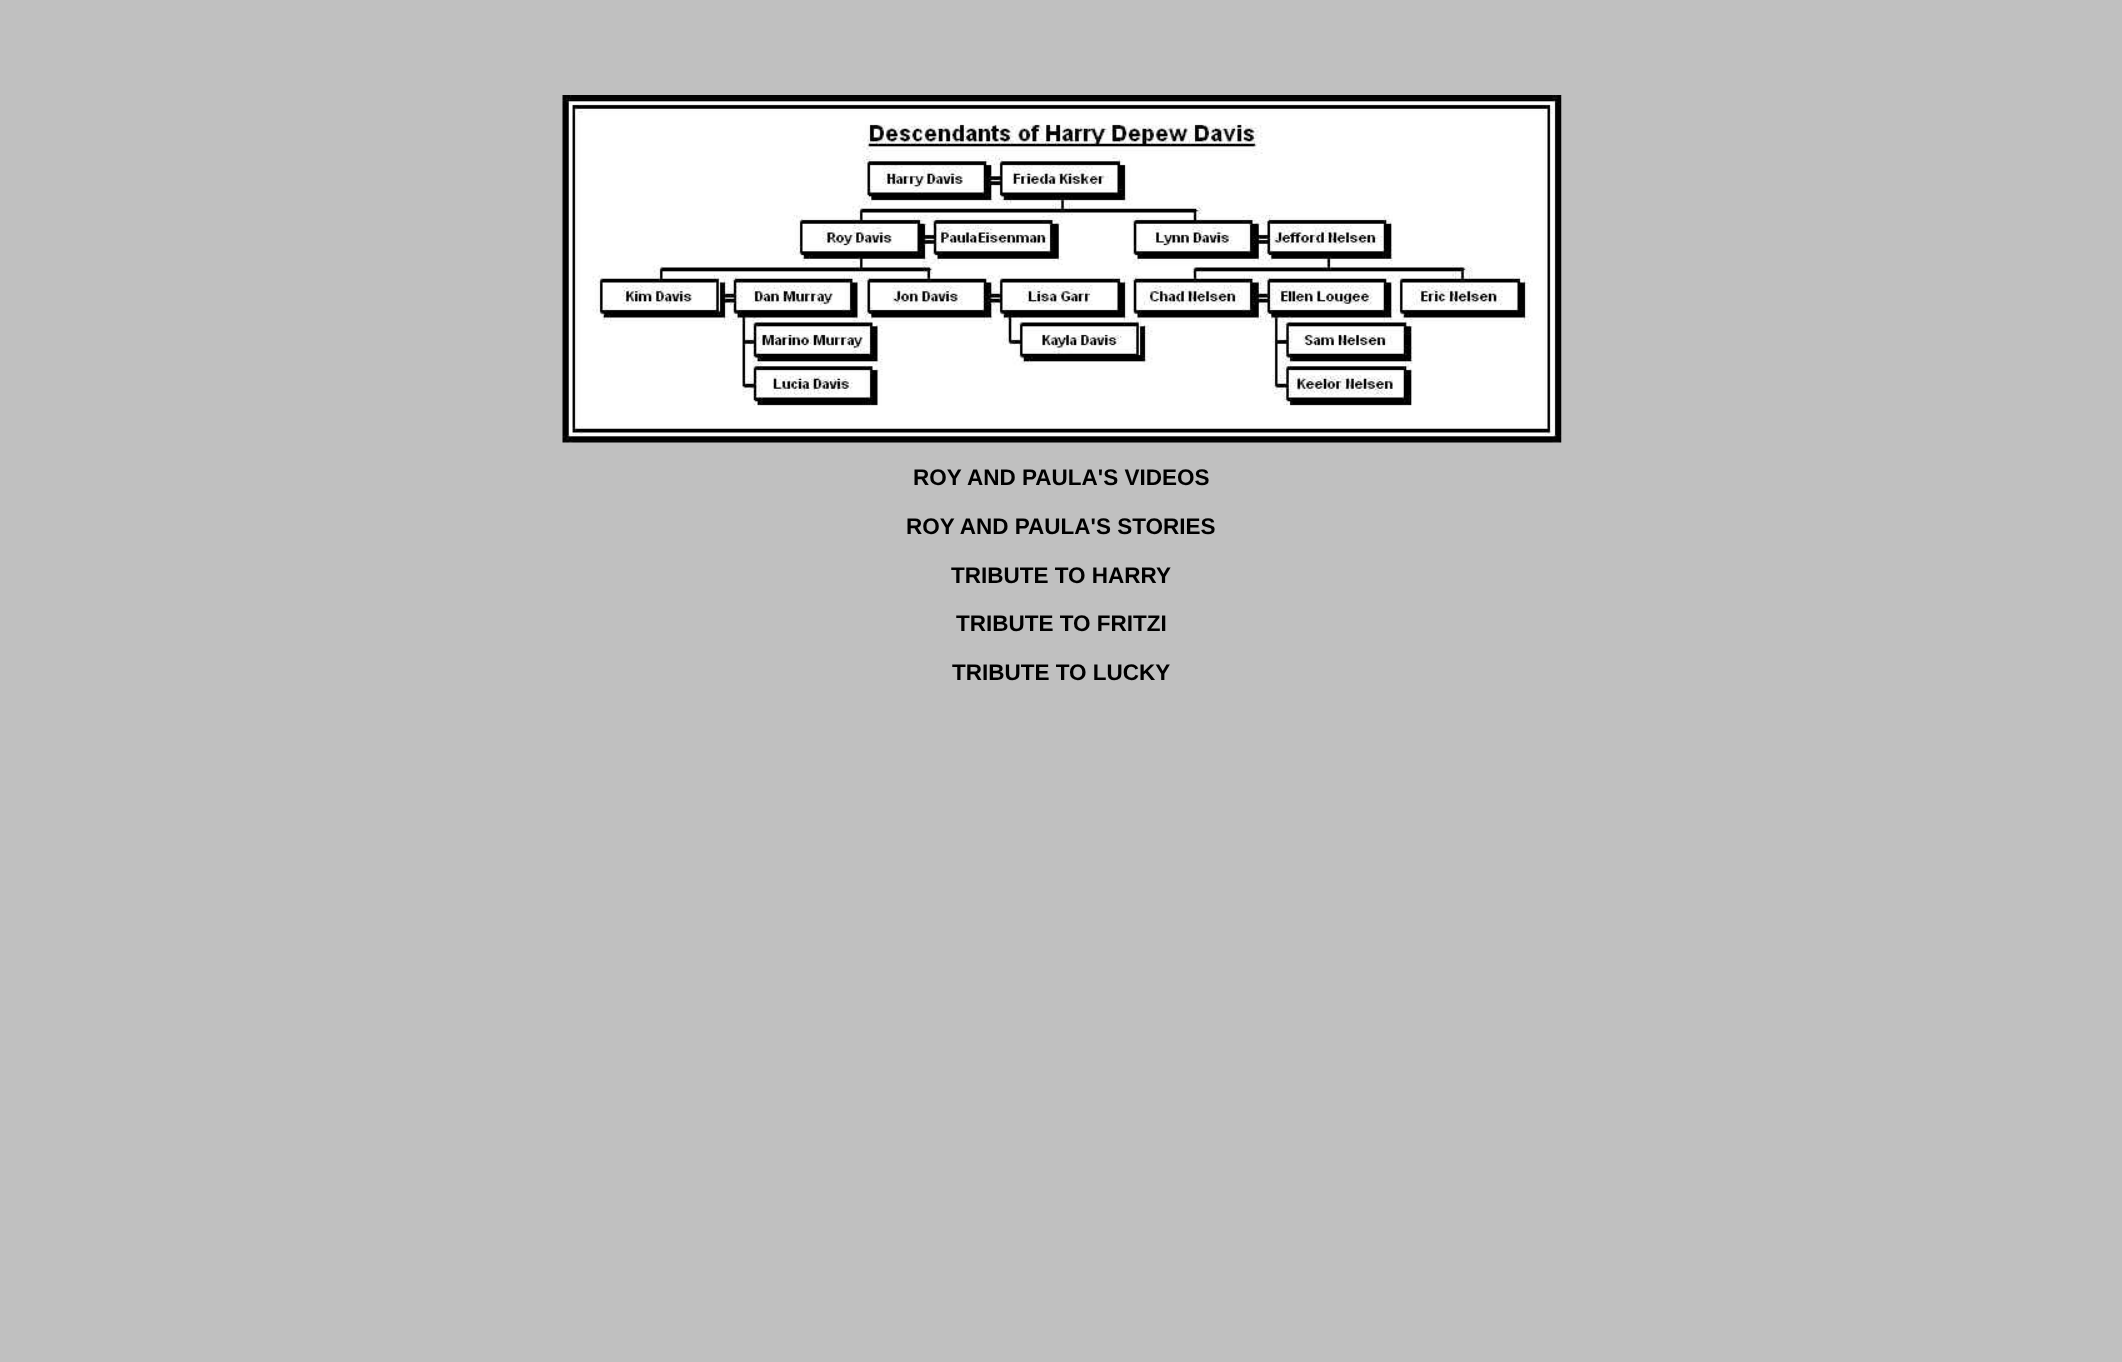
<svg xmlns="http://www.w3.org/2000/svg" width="2122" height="1362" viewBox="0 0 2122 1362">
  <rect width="100%" height="100%" fill="#c0c0c0"/>
  <image x="562" y="95" width="1000" height="348" href="img1.png"/>
  <text x="913" y="485" font-family="Liberation Sans" font-size="22.5" font-weight="bold" fill="#000000">ROY</text>
  <text x="967" y="485" font-family="Liberation Sans" font-size="22.5" font-weight="bold" fill="#000000">AND PAULA'S VIDEOS</text>
  <text x="906" y="534" font-family="Liberation Sans" font-size="22.5" font-weight="bold" fill="#000000">ROY AND PAULA'S STORIES</text>
  <text x="951" y="583" font-family="Liberation Sans" font-size="22.5" font-weight="bold" fill="#000000">TRIBUTE TO HARRY</text>
  <text x="956" y="631" font-family="Liberation Sans" font-size="22.5" font-weight="bold" fill="#000000">TRIBUTE TO FRITZI</text>
  <text x="952" y="680" font-family="Liberation Sans" font-size="22.5" font-weight="bold" fill="#000000">TRIBUTE TO LUCKY</text>
</svg>
